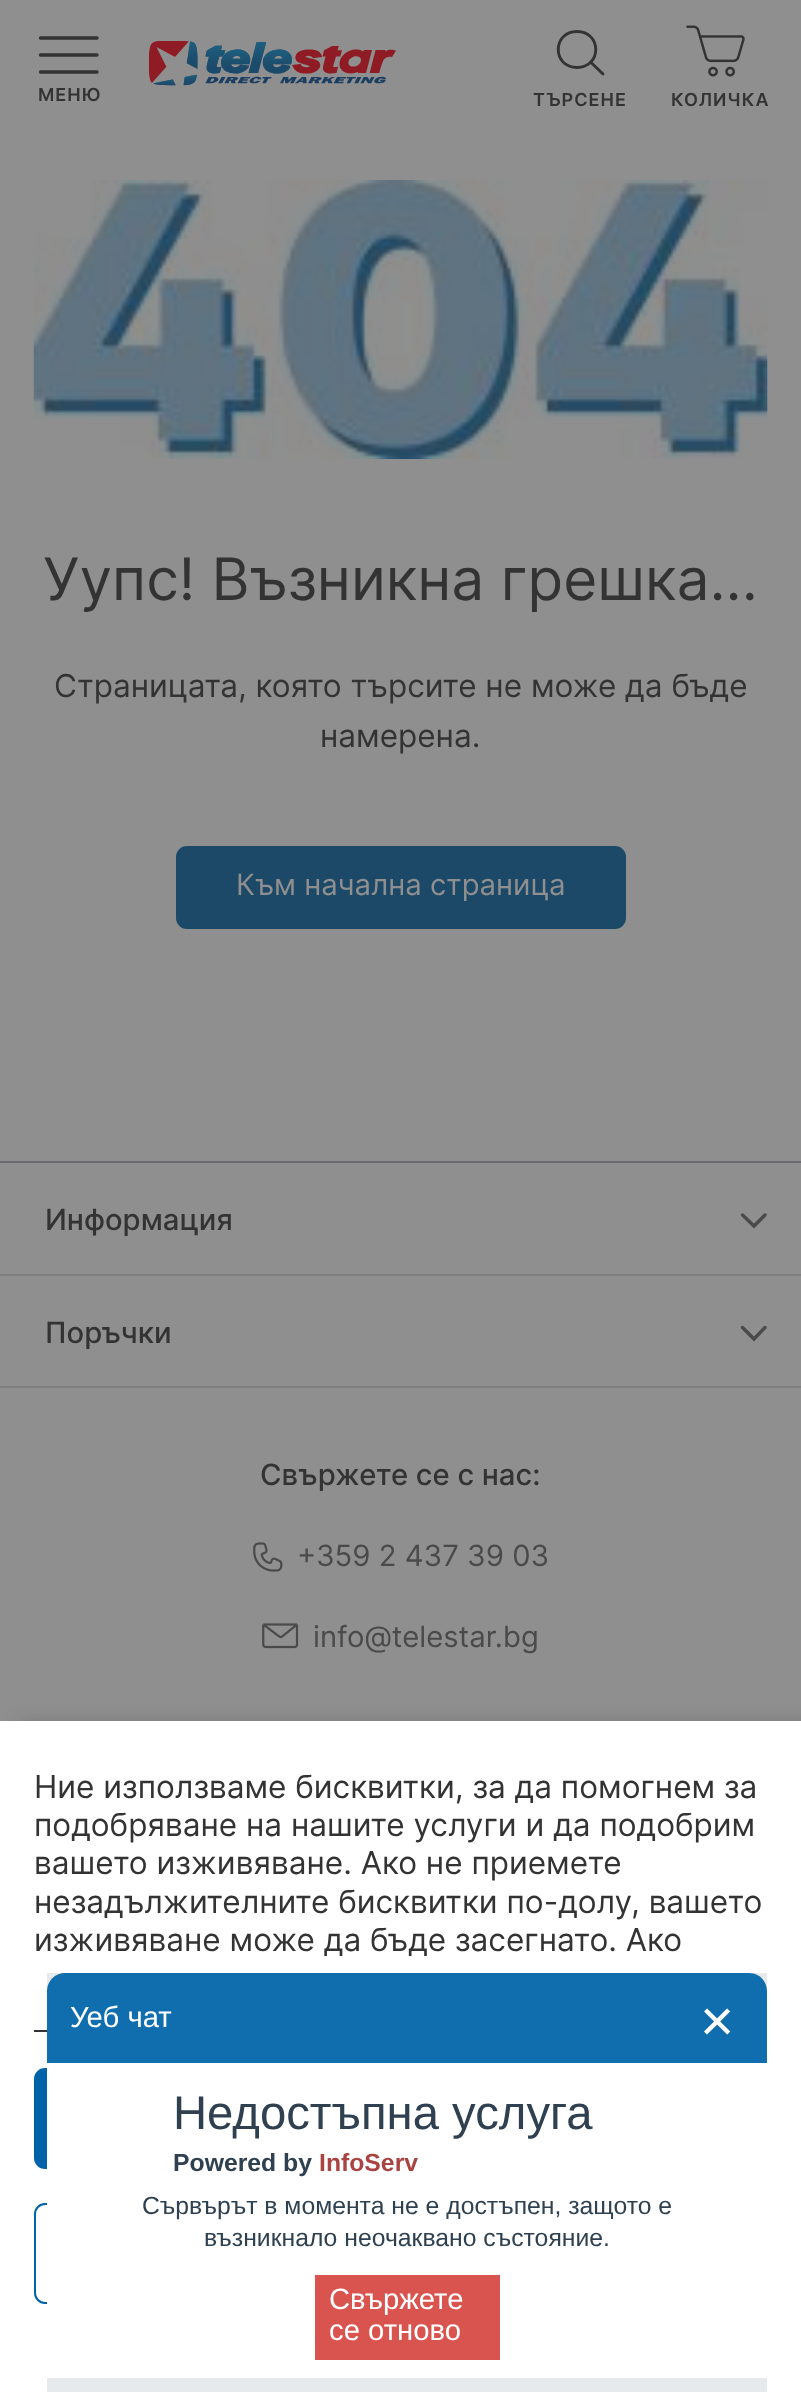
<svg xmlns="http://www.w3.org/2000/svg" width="801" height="2394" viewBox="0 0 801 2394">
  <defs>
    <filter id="blur1" x="-50%" y="-200%" width="200%" height="500%"><feGaussianBlur stdDeviation="9"/></filter>
  </defs>
  <rect width="100%" height="100%" fill="#8f8f8f"/>
  <image x="149" y="41" width="247" height="45" href="img1.png"/>
  <path d="M40.5 38H97M40.5 72H97M40.5 55H97" fill="none" stroke="#333333" stroke-width="3.4" stroke-linecap="round"/>
  <text x="38" y="101" font-family="Inter" font-size="18" font-weight="600" letter-spacing="1" fill="#333333">МЕНЮ</text>
  <path d="M590.5 62L603 74M577 67.5C552 67.5 552 31.5 577 31.5C602 31.5 602 67.5 577 67.5Z" fill="none" stroke="#333333" stroke-width="2.9" stroke-linecap="round"/>
  <text x="533" y="106" font-family="Inter" font-size="18" font-weight="600" letter-spacing="1" fill="#333333">ТЪРСЕНЕ</text>
  <image x="686" y="25" width="59" height="52" href="img2.png"/>
  <text x="671" y="106" font-family="Inter" font-size="18" font-weight="600" letter-spacing="1" fill="#333333">КОЛИЧКА</text>
  <image x="33" y="180" width="735" height="279" href="img3.png"/>
  <text x="43" y="600" font-family="Inter" font-size="58.5" fill="#333333">Уупс! Възникна грешка...</text>
  <text x="54" y="697" font-family="Inter" font-size="31.5" fill="#333333">Страницата, която търсите не може да бъде</text>
  <text x="320" y="747" font-family="Inter" font-size="31.5" fill="#333333">намерена.</text>
  <rect x="177" y="847" width="448" height="81" rx="10" fill="#1c4968" stroke="#1c4968" stroke-width="2"/>
  <text x="236" y="895" font-family="Inter" font-size="29.25" fill="#8f8f8f">Към начална страница</text>
  <rect x="0" y="1161" width="801" height="2" fill="#686a70"/>
  <rect x="0" y="1274" width="801" height="2" fill="#7e7f81"/>
  <text x="45" y="1230" font-family="Inter" font-size="29.25" font-weight="500" fill="#333333">Информация</text>
  <path d="M742.5 1215L754 1226L765 1215" fill="none" stroke="#4a4a4a" stroke-width="3.4" stroke-linecap="round"/>
  <rect x="0" y="1386" width="801" height="2" fill="#7e7f81"/>
  <text x="45" y="1343" font-family="Inter" font-size="29.25" font-weight="500" fill="#333333">Поръчки</text>
  <path d="M742.5 1327.5L754 1339L765 1327.5" fill="none" stroke="#4a4a4a" stroke-width="3.4" stroke-linecap="round"/>
  <text x="260" y="1485" font-family="Inter" font-size="29.25" font-weight="500" fill="#333333">Свържете се с нас:</text>
  <image x="253" y="1542" width="30" height="30" href="img4.png"/>
  <text x="297" y="1566" font-family="Inter" font-size="29.25" fill="#4a4a4a">+359 2 437 39 03</text>
  <image x="262" y="1623" width="37" height="26" href="img5.png"/>
  <text x="313" y="1647" font-family="Inter" font-size="29.25" fill="#4a4a4a">info@telestar.bg</text>
  <rect x="18" y="1721" width="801" height="673" fill="#000000" fill-opacity="0.15" filter="url(#blur1)"/>
  <rect x="0" y="1721" width="801" height="673" fill="#ffffff"/>
  <text x="34" y="1798" font-family="Inter" font-size="31.5" fill="#333333">Ние използваме бисквитки, за да помогнем за</text>
  <text x="34" y="1836" font-family="Inter" font-size="31.5" fill="#333333">подобряване на нашите услуги и да подобрим</text>
  <text x="34" y="1874" font-family="Inter" font-size="31.5" fill="#333333">вашето изживяване. Ако не приемете</text>
  <text x="34" y="1913" font-family="Inter" font-size="31.5" fill="#333333">незадължителните бисквитки по-долу, вашето</text>
  <text x="34" y="1951" font-family="Inter" font-size="31.5" fill="#333333">изживяване може да бъде засегнато. Ако</text>
  <rect x="34" y="2030" width="13" height="2" fill="#333333"/>
  <rect x="35" y="2069" width="731" height="99" rx="10" fill="#0063a9" stroke="#0063a9" stroke-width="2"/>
  <rect x="35" y="2204" width="731" height="99" rx="10" fill="none" stroke="#0063a9" stroke-width="2"/>
  <rect x="47" y="1973" width="720" height="419" fill="#e7eaec"/>
  <path d="M65 1973H749C759 1973 767 1981 767 1991V2063H47V1991C47 1981 55 1973 65 1973Z" fill="#106eae"/>
  <text x="70" y="2027" font-family="Liberation Sans" font-size="29.25" fill="#ffffff">Уеб чат</text>
  <text x="700" y="2041" font-family="Liberation Sans" font-size="58.5" fill="#ffffff">×</text>
  <rect x="47" y="2063" width="720" height="315" fill="#ffffff"/>
  <text x="173" y="2129" font-family="Liberation Sans" font-size="47.25" fill="#2f4050">Недостъпна услуга</text>
  <text x="173" y="2171" font-family="Liberation Sans" font-size="24.75" font-weight="bold" fill="#2f4050">Powered by</text>
  <text x="319" y="2171" font-family="Liberation Sans" font-size="24.75" font-weight="bold" fill="#a94442">InfoServ</text>
  <text x="142" y="2214" font-family="Liberation Sans" font-size="24.75" fill="#2f4050">Сървърът в момента не е достъпен, защото е</text>
  <text x="204" y="2246" font-family="Liberation Sans" font-size="24.75" fill="#2f4050">възникнало неочаквано състояние.</text>
  <rect x="315" y="2275" width="185" height="85" fill="#d9534f"/>
  <text x="329" y="2309" font-family="Liberation Sans" font-size="29.25" fill="#ffffff">Свържете</text>
  <text x="329" y="2340" font-family="Liberation Sans" font-size="29.25" fill="#ffffff">се отново</text>
</svg>
